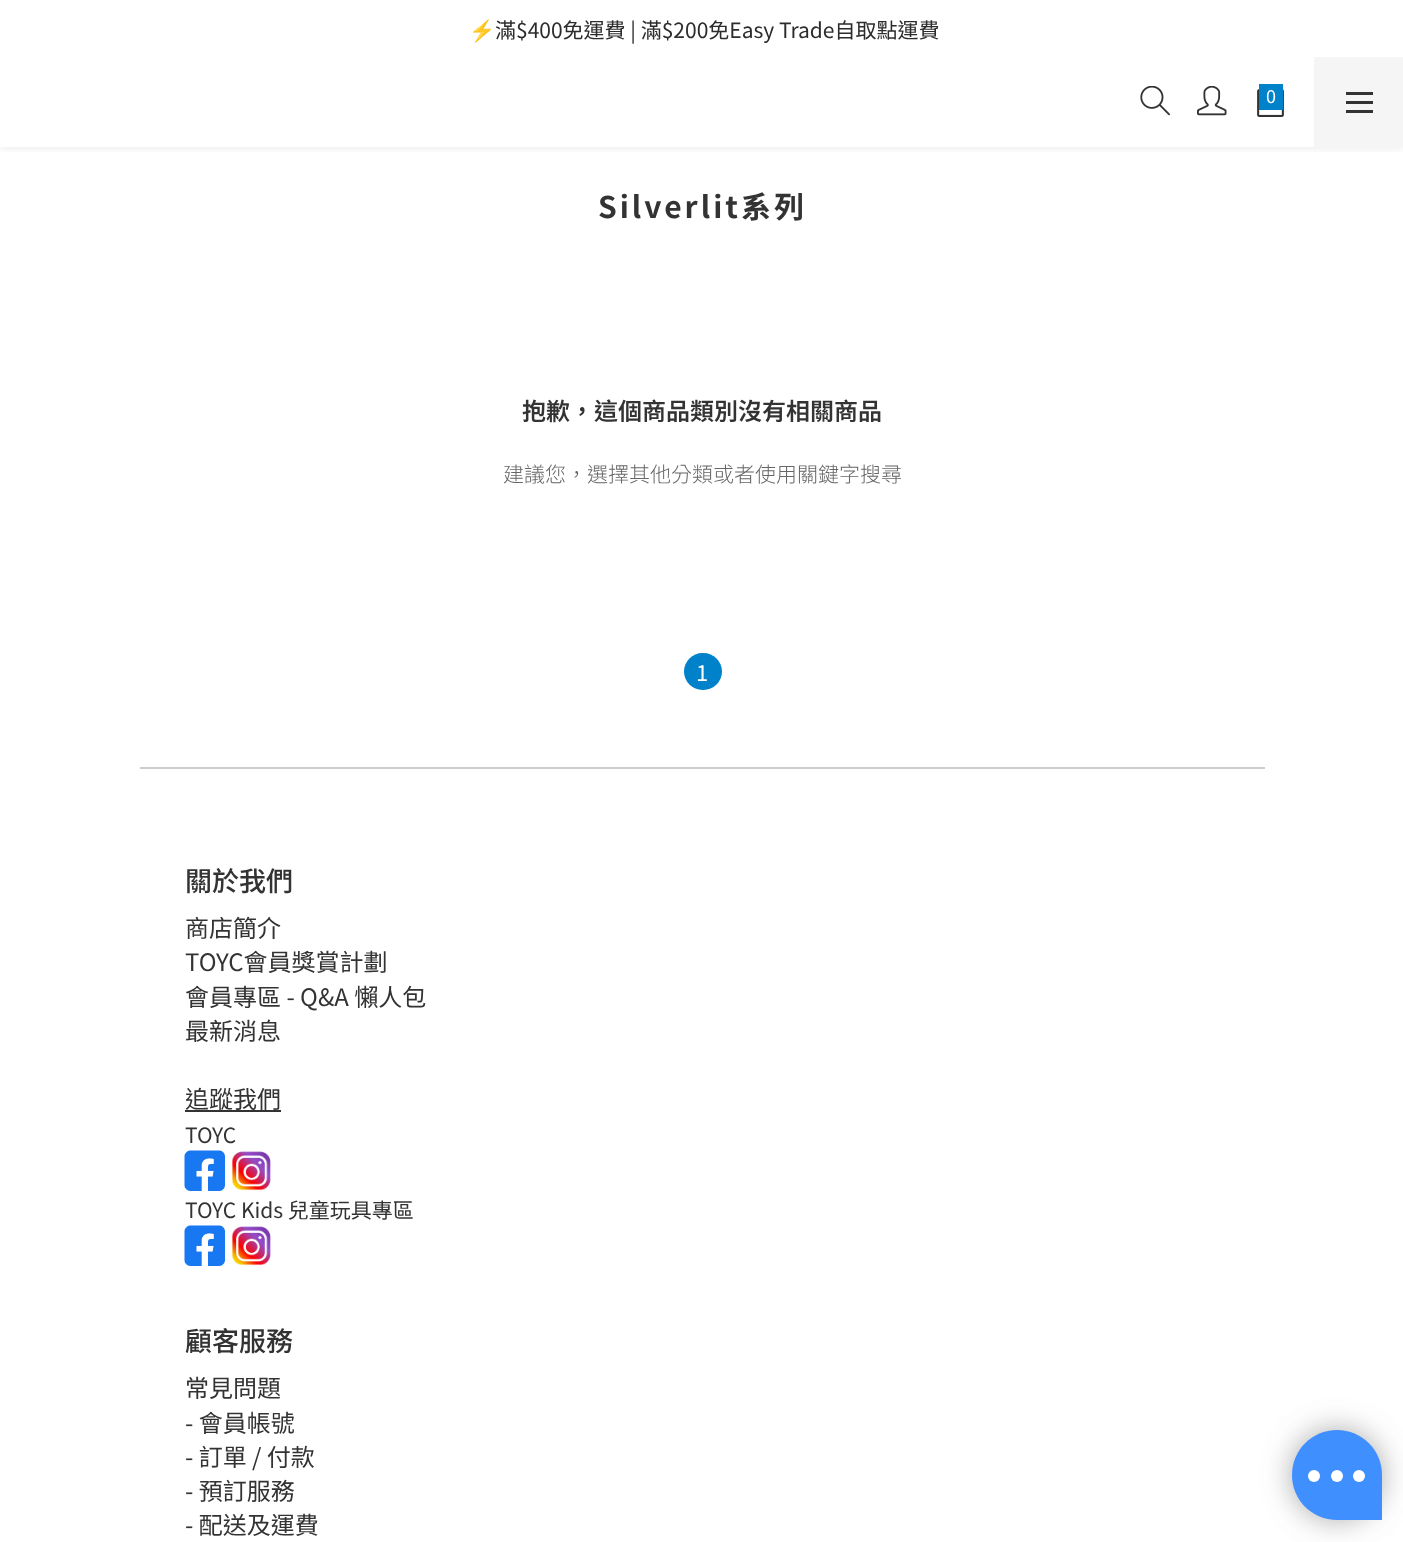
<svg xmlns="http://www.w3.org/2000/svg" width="1403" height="1542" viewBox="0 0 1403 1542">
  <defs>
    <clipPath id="clip1"><rect x="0" y="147" width="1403" height="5"/></clipPath>
    <filter id="blur1" x="-50%" y="-200%" width="200%" height="500%"><feGaussianBlur stdDeviation="4.5"/></filter>
    <filter id="blur2" x="-50%" y="-200%" width="200%" height="500%"><feGaussianBlur stdDeviation="15"/></filter>
  </defs>
  <rect width="100%" height="100%" fill="#ffffff"/>
  <text x="469" y="38" font-family="Noto Color Emoji" font-size="21" fill="#2c2c2c">⚡</text>
  <text x="495" y="38" font-family="Noto Sans TC" font-size="21" fill="#2c2c2c">滿$400免運費 | 滿$200免Easy Trade自取點運費</text>
  <g clip-path="url(#clip1)">
    <rect x="0" y="60" width="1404" height="90" fill="#000000" fill-opacity="0.06" filter="url(#blur1)"/>
  </g>
  <image x="1140" y="86" width="30" height="30" href="img1.png"/>
  <image x="1197" y="86" width="30" height="30" href="img2.png"/>
  <image x="1257" y="89" width="27" height="28" href="img3.png"/>
  <rect x="1259" y="84" width="24" height="26" fill="#0082ca"/>
  <text x="1266" y="103" font-family="Noto Sans TC" font-size="18" fill="#ffffff">0</text>
  <rect x="1314" y="57" width="89" height="90" fill="#f5f5f5"/>
  <rect x="1346" y="101" width="27" height="3" fill="#333333"/>
  <rect x="1346" y="92" width="27" height="3" fill="#333333"/>
  <rect x="1346" y="110" width="27" height="3" fill="#333333"/>
  <text x="598" y="218" font-family="Noto Sans TC" font-size="30" font-weight="bold" letter-spacing="3" fill="#333333">Silverlit系列</text>
  <text x="522" y="420" font-family="Noto Sans TC" font-size="24" font-weight="600" fill="#333333">抱歉，這個商品類別沒有相關商品</text>
  <text x="503" y="482" font-family="Noto Sans TC" font-size="21" font-weight="300" fill="#666666">建議您，選擇其他分類或者使用關鍵字搜尋</text>
  <rect x="684" y="653" width="38" height="37" rx="18.5" fill="#0082ca"/>
  <text x="696" y="681" font-family="Noto Sans TC" font-size="22" fill="#ffffff">1</text>
  <rect x="140" y="767" width="1125" height="2" fill="#cccccc"/>
  <text x="185" y="891" font-family="Noto Sans TC" font-size="27" font-weight="500" fill="#333333">關於我們</text>
  <text x="185" y="937" font-family="Noto Sans TC" font-size="24" fill="#333333">商店簡介</text>
  <text x="185" y="971" font-family="Noto Sans TC" font-size="24" fill="#333333">TOYC會員獎賞計劃</text>
  <text x="185" y="1006" font-family="Noto Sans TC" font-size="24" fill="#333333">會員專區 - Q&amp;A 懶人包</text>
  <text x="185" y="1040" font-family="Noto Sans TC" font-size="24" fill="#333333">最新消息</text>
  <text x="185" y="1108" font-family="Noto Sans TC" font-size="24" fill="#333333">追蹤我們</text>
  <rect x="185" y="1110" width="96" height="2" fill="#333333"/>
  <text x="185" y="1143" font-family="Noto Sans TC" font-size="21" fill="#333333">TOYC</text>
  <image x="184" y="1150" width="41" height="41" href="img4.png"/>
  <image x="231" y="1151" width="40" height="40" href="img5.png"/>
  <text x="185" y="1218" font-family="Noto Sans TC" font-size="21" fill="#333333">TOYC Kids 兒童玩具專區</text>
  <image x="184" y="1225" width="41" height="41" href="img4.png"/>
  <image x="231" y="1226" width="40" height="40" href="img5.png"/>
  <text x="185" y="1351" font-family="Noto Sans TC" font-size="27" font-weight="500" fill="#333333">顧客服務</text>
  <text x="185" y="1397" font-family="Noto Sans TC" font-size="24" fill="#333333">常見問題</text>
  <text x="185" y="1432" font-family="Noto Sans TC" font-size="24" fill="#333333">- 會員帳號</text>
  <text x="185" y="1466" font-family="Noto Sans TC" font-size="24" fill="#333333">- 訂單 / 付款</text>
  <text x="185" y="1500" font-family="Noto Sans TC" font-size="24" fill="#333333">- 預訂服務</text>
  <text x="185" y="1534" font-family="Noto Sans TC" font-size="24" fill="#333333">- 配送及運費</text>
  <rect x="1292" y="1430" width="90" height="90" rx="45" fill="#777777" fill-opacity="0.64" filter="url(#blur2)"/>
  <path d="M1337 1430C1362 1430 1382 1450 1382 1475V1520H1337C1312 1520 1292 1500 1292 1475C1292 1450 1312 1430 1337 1430Z" fill="#408fff"/>
  <circle cx="1314" cy="1476" r="6" fill="#ffffff"/>
  <circle cx="1337" cy="1476" r="6" fill="#ffffff"/>
  <circle cx="1359" cy="1476" r="6" fill="#ffffff"/>
</svg>
